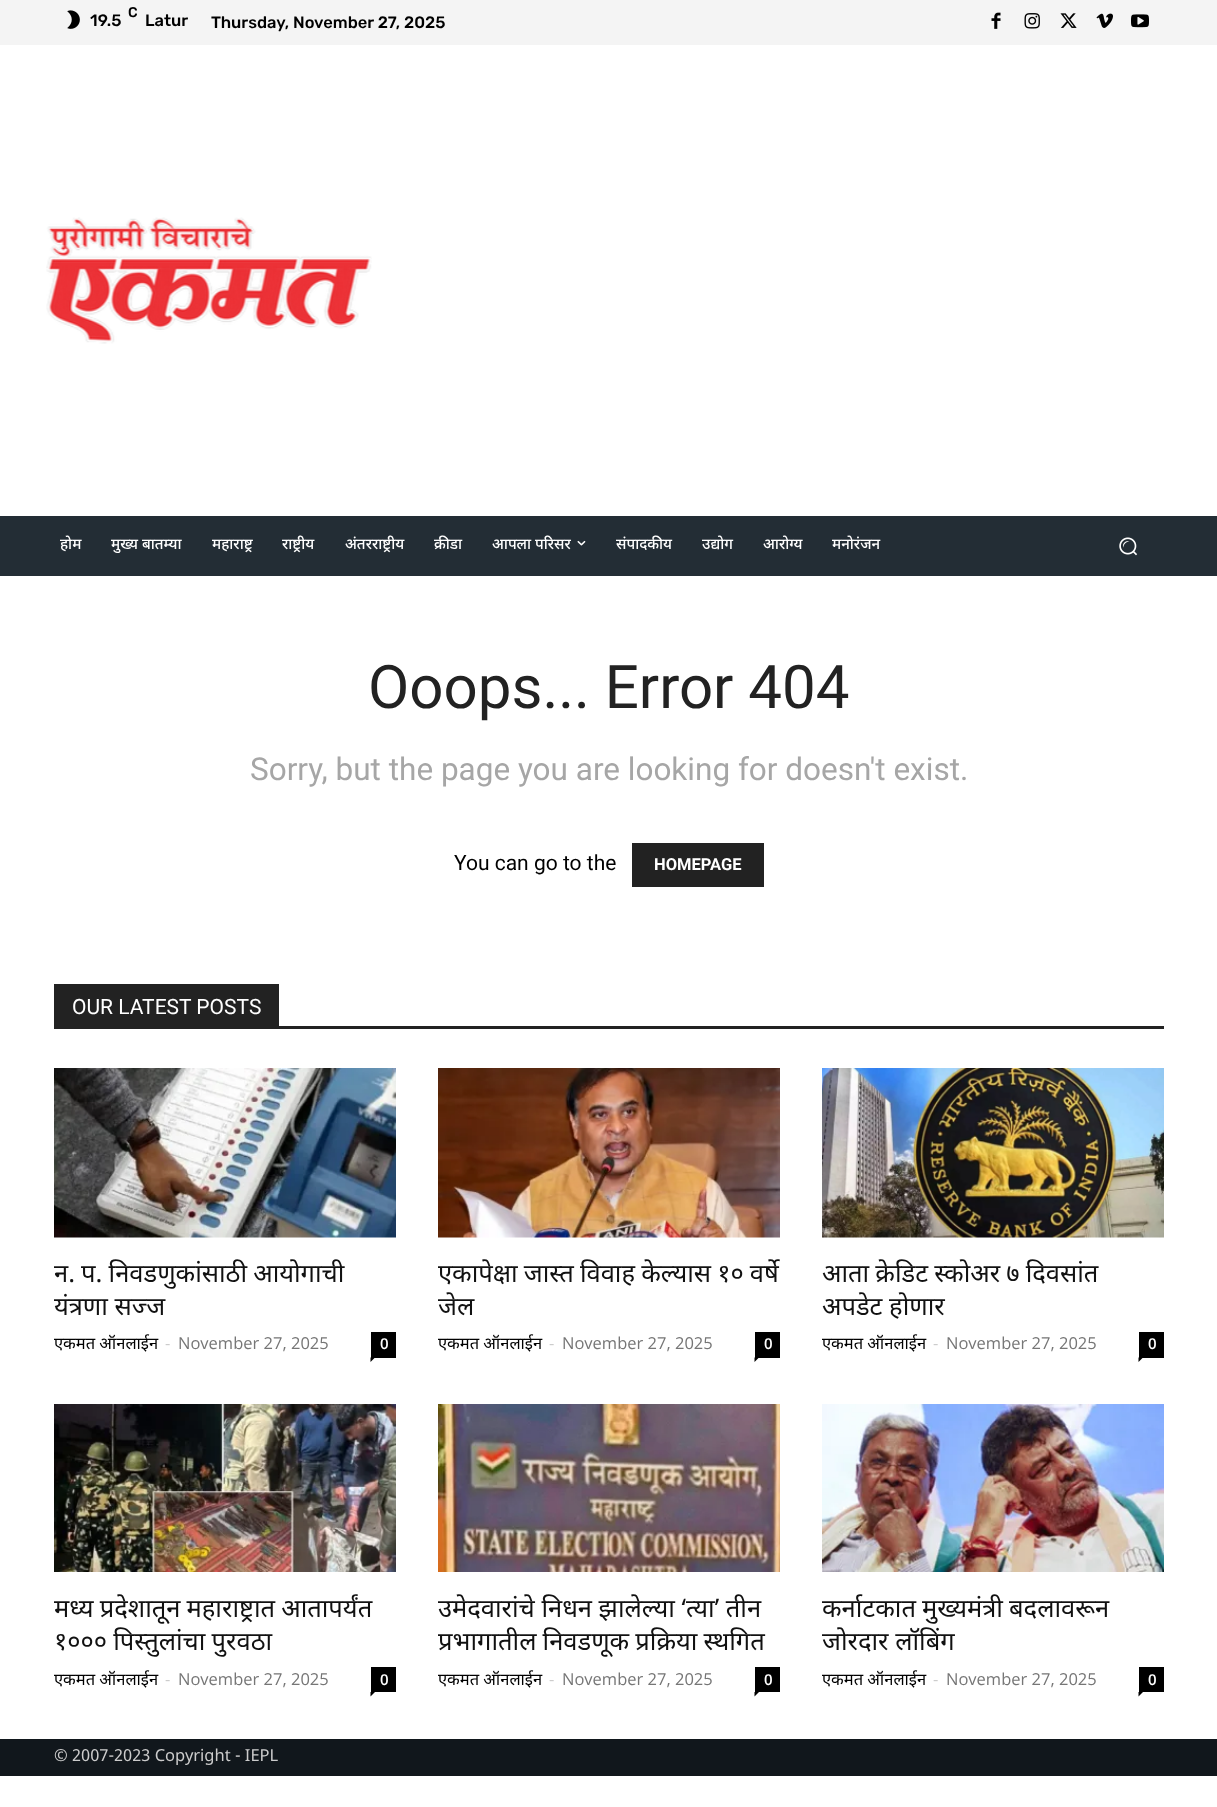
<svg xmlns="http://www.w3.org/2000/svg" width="1217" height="1807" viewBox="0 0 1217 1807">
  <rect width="100%" height="100%" fill="#ffffff"/>
  <rect x="0" y="0" width="1217" height="45" fill="#f4f4f4"/>
  <image x="67" y="10" width="13" height="19" href="img1.png"/>
  <text x="128" y="17" font-family="Rubik" font-size="14" font-weight="500" fill="#000000">C</text>
  <text x="90" y="26" font-family="Rubik" font-size="16.5" font-weight="500" fill="#000000">19.5</text>
  <text x="145" y="26" font-family="Rubik" font-size="16.5" font-weight="500" fill="#000000">Latur</text>
  <text x="211" y="28" font-family="Rubik" font-size="16.5" font-weight="500" fill="#000000">Thursday, November 27, 2025</text>
  <image x="991" y="12" width="10" height="17" href="img2.png"/>
  <image x="1024" y="13" width="16" height="16" href="img3.png"/>
  <image x="1060" y="13" width="17" height="15" href="img4.png"/>
  <image x="1096" y="13" width="17" height="15" href="img5.png"/>
  <image x="1131" y="14" width="18" height="14" href="img6.png"/>
  <image x="46" y="217" width="326" height="127" href="img7.png"/>
  <rect x="0" y="516" width="1217" height="60" fill="#232d35"/>
  <text x="60" y="549" font-family="Noto Sans Devanagari" font-size="15" font-weight="500" fill="#ffffff">होम</text>
  <text x="111" y="549" font-family="Noto Sans Devanagari" font-size="15" font-weight="500" fill="#ffffff">मुख्य बातम्या</text>
  <text x="212" y="549" font-family="Noto Sans Devanagari" font-size="15" font-weight="500" fill="#ffffff">महाराष्ट्र</text>
  <text x="282" y="549" font-family="Noto Sans Devanagari" font-size="15" font-weight="500" fill="#ffffff">राष्ट्रीय</text>
  <text x="345" y="549" font-family="Noto Sans Devanagari" font-size="15" font-weight="500" fill="#ffffff">अंतरराष्ट्रीय</text>
  <text x="434" y="549" font-family="Noto Sans Devanagari" font-size="15" font-weight="500" fill="#ffffff">क्रीडा</text>
  <text x="492" y="549" font-family="Noto Sans Devanagari" font-size="15" font-weight="500" fill="#ffffff">आपला परिसर</text>
  <image x="577" y="540" width="9" height="6" href="img8.png"/>
  <text x="616" y="549" font-family="Noto Sans Devanagari" font-size="15" font-weight="500" fill="#ffffff">संपादकीय</text>
  <text x="702" y="549" font-family="Noto Sans Devanagari" font-size="15" font-weight="500" fill="#ffffff">उद्योग</text>
  <text x="763" y="549" font-family="Noto Sans Devanagari" font-size="15" font-weight="500" fill="#ffffff">आरोग्य</text>
  <text x="832" y="549" font-family="Noto Sans Devanagari" font-size="15" font-weight="500" fill="#ffffff">मनोरंजन</text>
  <image x="1119" y="537" width="19" height="19" href="img9.png"/>
  <text x="368" y="708" font-family="Roboto" font-size="60" fill="#222222">Ooops... Error 404</text>
  <text x="250" y="780" font-family="Roboto" font-size="31.5" fill="#a6a6a6">Sorry, but the page you are looking for doesn't exist.</text>
  <text x="454" y="870" font-family="Roboto" font-size="21" fill="#000000">You can go to the</text>
  <rect x="632" y="843" width="132" height="44" fill="#222222"/>
  <text x="654" y="870" font-family="Roboto" font-size="16.5" font-weight="bold" fill="#ffffff">HOMEPAGE</text>
  <rect x="54" y="1026" width="1110" height="3" fill="#222222"/>
  <rect x="54" y="984" width="225" height="42" fill="#222222"/>
  <text x="72" y="1014" font-family="Roboto" font-size="21" fill="#ffffff">OUR LATEST POSTS</text>
  <image x="54" y="1068" width="342" height="170" href="img10.png"/>
  <text x="54" y="1282" word-spacing="-0.5" font-family="Noto Sans" font-size="25.5" fill="#111111">न. प. निवडणुकांसाठी आयोगाची</text>
  <text x="54" y="1315" font-family="Noto Sans" font-size="25.5" fill="#111111">यंत्रणा सज्ज</text>
  <text x="54" y="1349" font-family="Noto Sans" font-size="16.5" fill="#000000">एकमत ऑनलाईन</text>
  <text x="165" y="1349" font-family="Open Sans" font-size="16.5" fill="#cccccc">-</text>
  <text x="178" y="1349" font-family="Open Sans" font-size="16.5" fill="#767676">November 27, 2025</text>
  <rect x="371" y="1332" width="25" height="26" fill="#000000"/>
  <text x="380" y="1349" font-family="Open Sans" font-size="15" font-weight="600" fill="#ffffff">0</text>
  <path d="M370.5 1357.5H375L370.5 1362Z" fill="#000000"/>
  <image x="438" y="1068" width="342" height="170" href="img11.png"/>
  <text x="438" y="1282" word-spacing="-0.5" font-family="Noto Sans" font-size="25.5" fill="#111111">एकापेक्षा जास्त विवाह केल्यास १० वर्षे</text>
  <text x="438" y="1315" font-family="Noto Sans" font-size="25.5" fill="#111111">जेल</text>
  <text x="438" y="1349" font-family="Noto Sans" font-size="16.5" fill="#000000">एकमत ऑनलाईन</text>
  <text x="549" y="1349" font-family="Open Sans" font-size="16.5" fill="#cccccc">-</text>
  <text x="562" y="1349" font-family="Open Sans" font-size="16.5" fill="#767676">November 27, 2025</text>
  <rect x="755" y="1332" width="25" height="26" fill="#000000"/>
  <text x="764" y="1349" font-family="Open Sans" font-size="15" font-weight="600" fill="#ffffff">0</text>
  <path d="M754.5 1357.5H759L754.5 1362Z" fill="#000000"/>
  <image x="822" y="1068" width="342" height="170" href="img12.png"/>
  <text x="822" y="1282" word-spacing="-0.5" font-family="Noto Sans" font-size="25.5" fill="#111111">आता क्रेडिट स्कोअर ७ दिवसांत</text>
  <text x="822" y="1315" font-family="Noto Sans" font-size="25.5" fill="#111111">अपडेट होणार</text>
  <text x="822" y="1349" font-family="Noto Sans" font-size="16.5" fill="#000000">एकमत ऑनलाईन</text>
  <text x="933" y="1349" font-family="Open Sans" font-size="16.5" fill="#cccccc">-</text>
  <text x="946" y="1349" font-family="Open Sans" font-size="16.5" fill="#767676">November 27, 2025</text>
  <rect x="1139" y="1332" width="25" height="26" fill="#000000"/>
  <text x="1148" y="1349" font-family="Open Sans" font-size="15" font-weight="600" fill="#ffffff">0</text>
  <path d="M1138.5 1357.5H1143L1138.5 1362Z" fill="#000000"/>
  <image x="54" y="1404" width="342" height="168" href="img13.png"/>
  <text x="54" y="1617" word-spacing="-0.5" font-family="Noto Sans" font-size="25.5" fill="#111111">मध्य प्रदेशातून महाराष्ट्रात आतापर्यंत</text>
  <text x="54" y="1650" word-spacing="-0.5" font-family="Noto Sans" font-size="25.5" fill="#111111">१००० पिस्तुलांचा पुरवठा</text>
  <text x="54" y="1685" font-family="Noto Sans" font-size="16.5" fill="#000000">एकमत ऑनलाईन</text>
  <text x="165" y="1685" font-family="Open Sans" font-size="16.5" fill="#cccccc">-</text>
  <text x="178" y="1685" font-family="Open Sans" font-size="16.5" fill="#767676">November 27, 2025</text>
  <rect x="371" y="1667" width="25" height="25" fill="#000000"/>
  <text x="380" y="1685" font-family="Open Sans" font-size="15" font-weight="600" fill="#ffffff">0</text>
  <path d="M370.5 1692H375L370.5 1696.5Z" fill="#000000"/>
  <image x="438" y="1404" width="342" height="168" href="img14.png"/>
  <text x="438" y="1617" font-family="Noto Sans" font-size="25.5" fill="#111111">उमेदवारांचे निधन झालेल्या ‘त्या’ तीन</text>
  <text x="438" y="1650" word-spacing="-0.5" font-family="Noto Sans" font-size="25.5" fill="#111111">प्रभागातील निवडणूक प्रक्रिया स्थगित</text>
  <text x="438" y="1685" font-family="Noto Sans" font-size="16.5" fill="#000000">एकमत ऑनलाईन</text>
  <text x="549" y="1685" font-family="Open Sans" font-size="16.5" fill="#cccccc">-</text>
  <text x="562" y="1685" font-family="Open Sans" font-size="16.5" fill="#767676">November 27, 2025</text>
  <rect x="755" y="1667" width="25" height="25" fill="#000000"/>
  <text x="764" y="1685" font-family="Open Sans" font-size="15" font-weight="600" fill="#ffffff">0</text>
  <path d="M754.5 1692H759L754.5 1696.5Z" fill="#000000"/>
  <image x="822" y="1404" width="342" height="168" href="img15.png"/>
  <text x="822" y="1617" word-spacing="-0.5" font-family="Noto Sans" font-size="25.5" fill="#111111">कर्नाटकात मुख्यमंत्री बदलावरून</text>
  <text x="822" y="1650" font-family="Noto Sans" font-size="25.5" fill="#111111">जोरदार लॉबिंग</text>
  <text x="822" y="1685" font-family="Noto Sans" font-size="16.5" fill="#000000">एकमत ऑनलाईन</text>
  <text x="933" y="1685" font-family="Open Sans" font-size="16.5" fill="#cccccc">-</text>
  <text x="946" y="1685" font-family="Open Sans" font-size="16.5" fill="#767676">November 27, 2025</text>
  <rect x="1139" y="1667" width="25" height="25" fill="#000000"/>
  <text x="1148" y="1685" font-family="Open Sans" font-size="15" font-weight="600" fill="#ffffff">0</text>
  <path d="M1138.5 1692H1143L1138.5 1696.5Z" fill="#000000"/>
  <rect x="0" y="1739" width="1217" height="37" fill="#11171c"/>
  <text x="54" y="1761" font-family="Noto Sans Devanagari" font-size="16.5" fill="#cccccc">© 2007-2023 Copyright - IEPL</text>
</svg>
